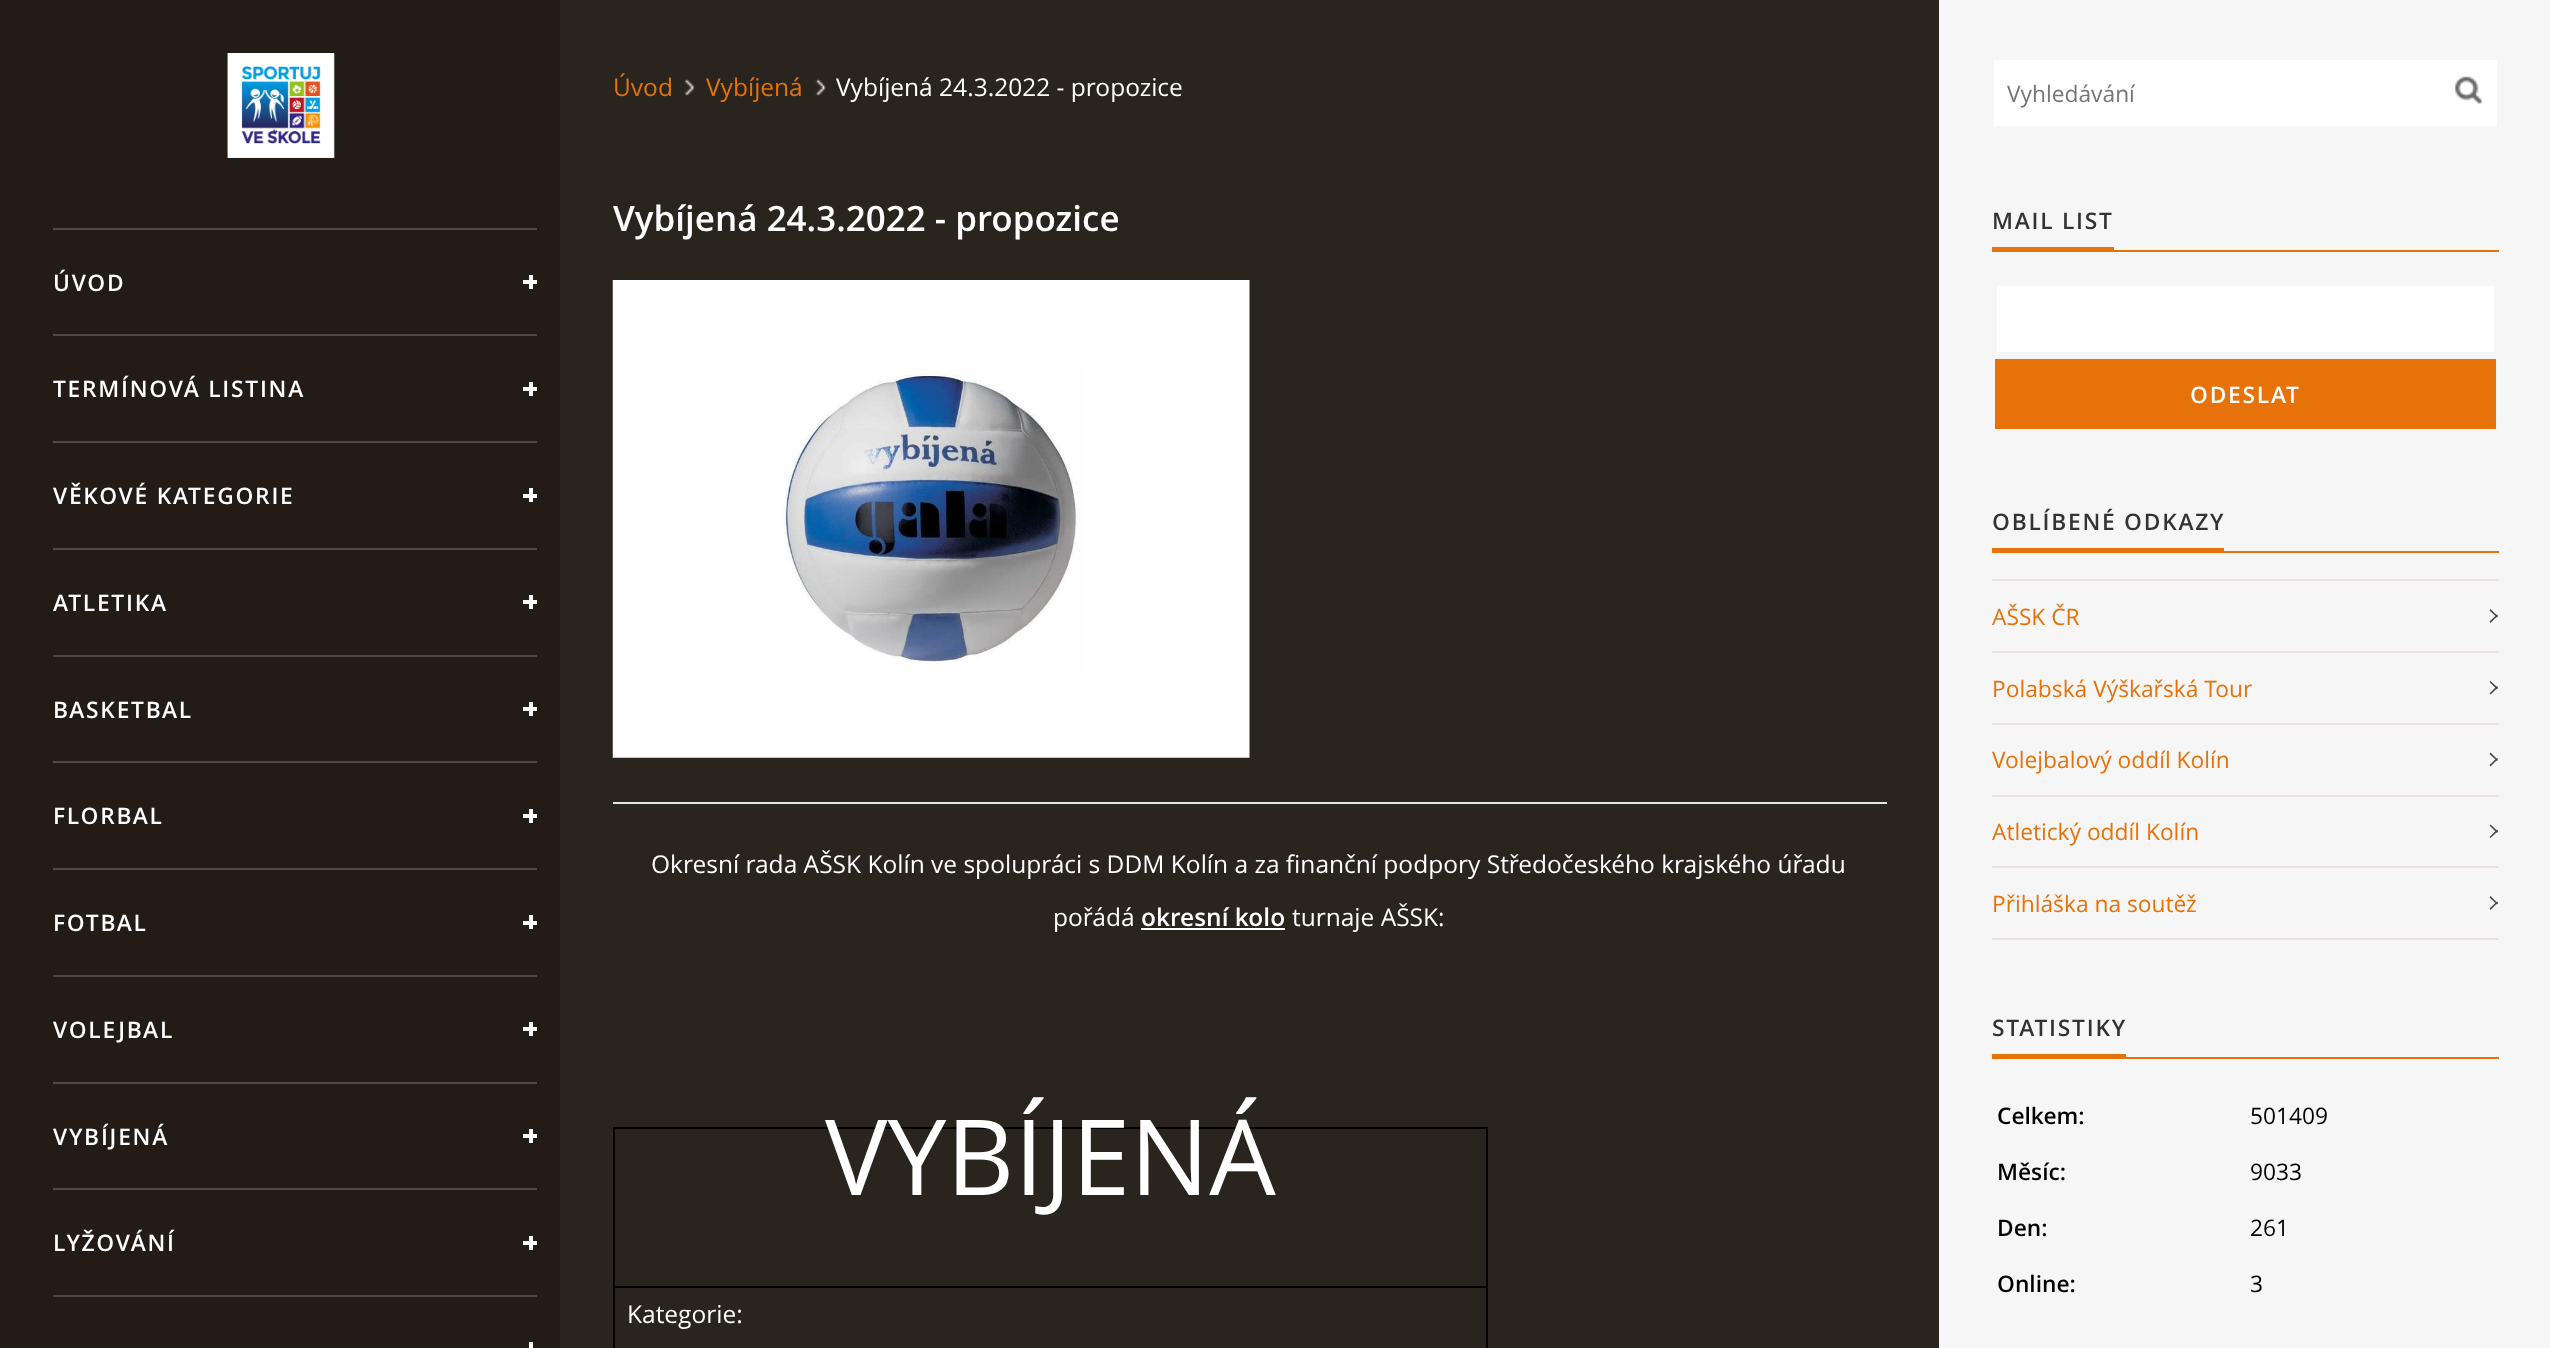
<svg xmlns="http://www.w3.org/2000/svg" width="2550" height="1348" viewBox="0 0 2550 1348">
  <rect width="100%" height="100%" fill="#29241e"/>
  <rect x="0" y="0" width="560" height="1348" fill="#221b16"/>
  <image x="227" y="53" width="108" height="105" href="img1.png"/>
  <rect x="53" y="228" width="484" height="2" fill="#4e4945"/>
  <text x="53" y="291" font-family="Open Sans" font-size="22.75" font-weight="600" letter-spacing="1.75" fill="#ffffff">ÚVOD</text>
  <rect x="523" y="280" width="14" height="4" fill="#ffffff"/>
  <rect x="529" y="275" width="4" height="14" fill="#ffffff"/>
  <rect x="53" y="334" width="484" height="2" fill="#4e4945"/>
  <text x="53" y="397" font-family="Open Sans" font-size="22.75" font-weight="600" letter-spacing="1.75" fill="#ffffff">TERMÍNOVÁ LISTINA</text>
  <rect x="523" y="387" width="14" height="4" fill="#ffffff"/>
  <rect x="529" y="382" width="4" height="14" fill="#ffffff"/>
  <rect x="53" y="441" width="484" height="2" fill="#4e4945"/>
  <text x="53" y="504" font-family="Open Sans" font-size="22.75" font-weight="600" letter-spacing="1.75" fill="#ffffff">VĚKOVÉ KATEGORIE</text>
  <rect x="523" y="494" width="14" height="4" fill="#ffffff"/>
  <rect x="529" y="488" width="4" height="14" fill="#ffffff"/>
  <rect x="53" y="548" width="484" height="2" fill="#4e4945"/>
  <text x="53" y="611" font-family="Open Sans" font-size="22.75" font-weight="600" letter-spacing="1.75" fill="#ffffff">ATLETIKA</text>
  <rect x="523" y="600" width="14" height="4" fill="#ffffff"/>
  <rect x="529" y="595" width="4" height="14" fill="#ffffff"/>
  <rect x="53" y="655" width="484" height="2" fill="#4e4945"/>
  <text x="53" y="718" font-family="Open Sans" font-size="22.75" font-weight="600" letter-spacing="1.75" fill="#ffffff">BASKETBAL</text>
  <rect x="523" y="707" width="14" height="4" fill="#ffffff"/>
  <rect x="529" y="702" width="4" height="14" fill="#ffffff"/>
  <rect x="53" y="761" width="484" height="2" fill="#4e4945"/>
  <text x="53" y="824" font-family="Open Sans" font-size="22.75" font-weight="600" letter-spacing="1.75" fill="#ffffff">FLORBAL</text>
  <rect x="523" y="814" width="14" height="4" fill="#ffffff"/>
  <rect x="529" y="809" width="4" height="14" fill="#ffffff"/>
  <rect x="53" y="868" width="484" height="2" fill="#4e4945"/>
  <text x="53" y="931" font-family="Open Sans" font-size="22.75" font-weight="600" letter-spacing="1.75" fill="#ffffff">FOTBAL</text>
  <rect x="523" y="921" width="14" height="4" fill="#ffffff"/>
  <rect x="529" y="915" width="4" height="14" fill="#ffffff"/>
  <rect x="53" y="975" width="484" height="2" fill="#4e4945"/>
  <text x="53" y="1038" font-family="Open Sans" font-size="22.75" font-weight="600" letter-spacing="1.75" fill="#ffffff">VOLEJBAL</text>
  <rect x="523" y="1027" width="14" height="4" fill="#ffffff"/>
  <rect x="529" y="1022" width="4" height="14" fill="#ffffff"/>
  <rect x="53" y="1082" width="484" height="2" fill="#4e4945"/>
  <text x="53" y="1145" font-family="Open Sans" font-size="22.75" font-weight="600" letter-spacing="1.75" fill="#ffffff">VYBÍJENÁ</text>
  <rect x="523" y="1134" width="14" height="4" fill="#ffffff"/>
  <rect x="529" y="1129" width="4" height="14" fill="#ffffff"/>
  <rect x="53" y="1188" width="484" height="2" fill="#4e4945"/>
  <text x="53" y="1251" font-family="Open Sans" font-size="22.75" font-weight="600" letter-spacing="1.75" fill="#ffffff">LYŽOVÁNÍ</text>
  <rect x="523" y="1241" width="14" height="4" fill="#ffffff"/>
  <rect x="529" y="1236" width="4" height="14" fill="#ffffff"/>
  <rect x="53" y="1295" width="484" height="2" fill="#4e4945"/>
  <rect x="529" y="1342" width="4" height="6" fill="#ffffff"/>
  <image x="684" y="79" width="11" height="17" href="img2.png"/>
  <text x="613" y="96" font-family="Open Sans" font-size="24.5" fill="#e67209">Úvod</text>
  <image x="815" y="78" width="11" height="19" href="img3.png"/>
  <text x="706" y="96" font-family="Open Sans" font-size="24.5" fill="#e67209">Vybíjená</text>
  <text x="836" y="96" font-family="Open Sans" font-size="24.5" fill="#ffffff">Vybíjená 24.3.2022 - propozice</text>
  <text x="613" y="231" font-family="Open Sans" font-size="35" font-weight="600" fill="#ffffff">Vybíjená 24.3.2022 - propozice</text>
  <rect x="613" y="802" width="1274" height="2" fill="#dfe8e2"/>
  <image x="612" y="280" width="638" height="478" href="img4.png"/>
  <text x="651" y="873" font-family="Open Sans" font-size="24.5" fill="#ffffff">Okresní rada AŠSK Kolín ve spolupráci s DDM Kolín a za finanční podpory Středočeského krajského úřadu</text>
  <text x="1053" y="926" font-family="Open Sans" font-size="24.5" fill="#ffffff">pořádá</text>
  <text x="1141" y="926" font-family="Open Sans" font-size="24.5" font-weight="600" fill="#ffffff">okresní kolo</text>
  <rect x="1141" y="928" width="144" height="2" fill="#ffffff"/>
  <text x="1292" y="926" font-family="Open Sans" font-size="24.5" fill="#ffffff">turnaje AŠSK:</text>
  <rect x="613" y="1127" width="875" height="2" fill="#000000"/>
  <rect x="1486" y="1286" width="2" height="62" fill="#000000"/>
  <rect x="1486" y="1127" width="2" height="161" fill="#000000"/>
  <rect x="613" y="1286" width="2" height="62" fill="#000000"/>
  <rect x="613" y="1286" width="875" height="2" fill="#000000"/>
  <rect x="613" y="1127" width="2" height="161" fill="#000000"/>
  <text x="825" y="1195" font-family="Open Sans" font-size="105" fill="#ffffff">VYBÍJENÁ</text>
  <text x="627" y="1323" font-family="Open Sans" font-size="24.5" fill="#ffffff">Kategorie:</text>
  <rect x="1939" y="0" width="611" height="1348" fill="#f6f6f6"/>
  <rect x="1994" y="60" width="503" height="66" fill="#ffffff"/>
  <text x="2007" y="102" font-family="Open Sans" font-size="22.75" fill="#757575">Vyhledávání</text>
  <image x="2454" y="76" width="28" height="28" href="img5.png"/>
  <text x="1992" y="229" font-family="Open Sans" font-size="22.75" font-weight="600" letter-spacing="1.75" fill="#333333">MAIL LIST</text>
  <rect x="1992" y="247" width="122" height="3" fill="#e67209"/>
  <rect x="1992" y="250" width="507" height="2" fill="#e67209"/>
  <rect x="1997" y="286" width="497" height="66" fill="#ffffff"/>
  <rect x="1995" y="359" width="501" height="70" fill="#e67209"/>
  <text x="2190" y="403" font-family="Open Sans" font-size="22.75" font-weight="600" letter-spacing="1.75" fill="#ffffff">ODESLAT</text>
  <text x="1992" y="530" font-family="Open Sans" font-size="22.75" font-weight="600" letter-spacing="1.75" fill="#333333">OBLÍBENÉ ODKAZY</text>
  <rect x="1992" y="548" width="232" height="3" fill="#e67209"/>
  <rect x="1992" y="551" width="507" height="2" fill="#e67209"/>
  <rect x="1992" y="579" width="507" height="2" fill="#e8dfdf"/>
  <rect x="1992" y="651" width="507" height="2" fill="#e8dfdf"/>
  <text x="1992" y="625" font-family="Open Sans" font-size="22.75" fill="#e67209">AŠSK ČR</text>
  <path d="M2490.5 609L2498 616.5L2497 617.5L2489.5 610.5Z" fill="#484848"/>
  <path d="M2489.5 621.5L2497 614.5L2498 615.5L2490.5 623Z" fill="#484848"/>
  <rect x="1992" y="723" width="507" height="2" fill="#e8dfdf"/>
  <text x="1992" y="697" font-family="Open Sans" font-size="22.75" fill="#e67209">Polabská Výškařská Tour</text>
  <path d="M2490.5 681L2498 688L2497 689.5L2489.5 682Z" fill="#484848"/>
  <path d="M2489.5 693.5L2497 686L2498 687.5L2490.5 694.5Z" fill="#484848"/>
  <rect x="1992" y="795" width="507" height="2" fill="#e8dfdf"/>
  <text x="1992" y="768" font-family="Open Sans" font-size="22.75" fill="#e67209">Volejbalový oddíl Kolín</text>
  <path d="M2490.5 752.5L2498 760L2497 761L2489.5 754Z" fill="#484848"/>
  <path d="M2489.5 765L2497 758L2498 759L2490.5 766.5Z" fill="#484848"/>
  <rect x="1992" y="866" width="507" height="2" fill="#e8dfdf"/>
  <text x="1992" y="840" font-family="Open Sans" font-size="22.75" fill="#e67209">Atletický oddíl Kolín</text>
  <path d="M2490.5 824.5L2498 831.5L2497 833L2489.5 825.5Z" fill="#484848"/>
  <path d="M2489.5 837L2497 829.5L2498 831L2490.5 838Z" fill="#484848"/>
  <rect x="1992" y="938" width="507" height="2" fill="#e8dfdf"/>
  <text x="1992" y="912" font-family="Open Sans" font-size="22.75" fill="#e67209">Přihláška na soutěž</text>
  <path d="M2490.5 896L2498 903.5L2497 904.5L2489.5 897.5Z" fill="#484848"/>
  <path d="M2489.5 908.5L2497 901.5L2498 902.5L2490.5 910Z" fill="#484848"/>
  <text x="1992" y="1036" font-family="Open Sans" font-size="22.75" font-weight="600" letter-spacing="1.75" fill="#333333">STATISTIKY</text>
  <rect x="1992" y="1054" width="134" height="3" fill="#e67209"/>
  <rect x="1992" y="1057" width="507" height="2" fill="#e67209"/>
  <text x="1997" y="1124" font-family="Open Sans" font-size="22.75" font-weight="600" fill="#000000">Celkem:</text>
  <text x="2250" y="1124" font-family="Open Sans" font-size="22.75" fill="#000000">501409</text>
  <text x="1997" y="1180" font-family="Open Sans" font-size="22.75" font-weight="600" fill="#000000">Měsíc:</text>
  <text x="2250" y="1180" font-family="Open Sans" font-size="22.75" fill="#000000">9033</text>
  <text x="1997" y="1236" font-family="Open Sans" font-size="22.75" font-weight="600" fill="#000000">Den:</text>
  <text x="2250" y="1236" font-family="Open Sans" font-size="22.75" fill="#000000">261</text>
  <text x="1997" y="1292" font-family="Open Sans" font-size="22.75" font-weight="600" fill="#000000">Online:</text>
  <text x="2250" y="1292" font-family="Open Sans" font-size="22.75" fill="#000000">3</text>
</svg>
